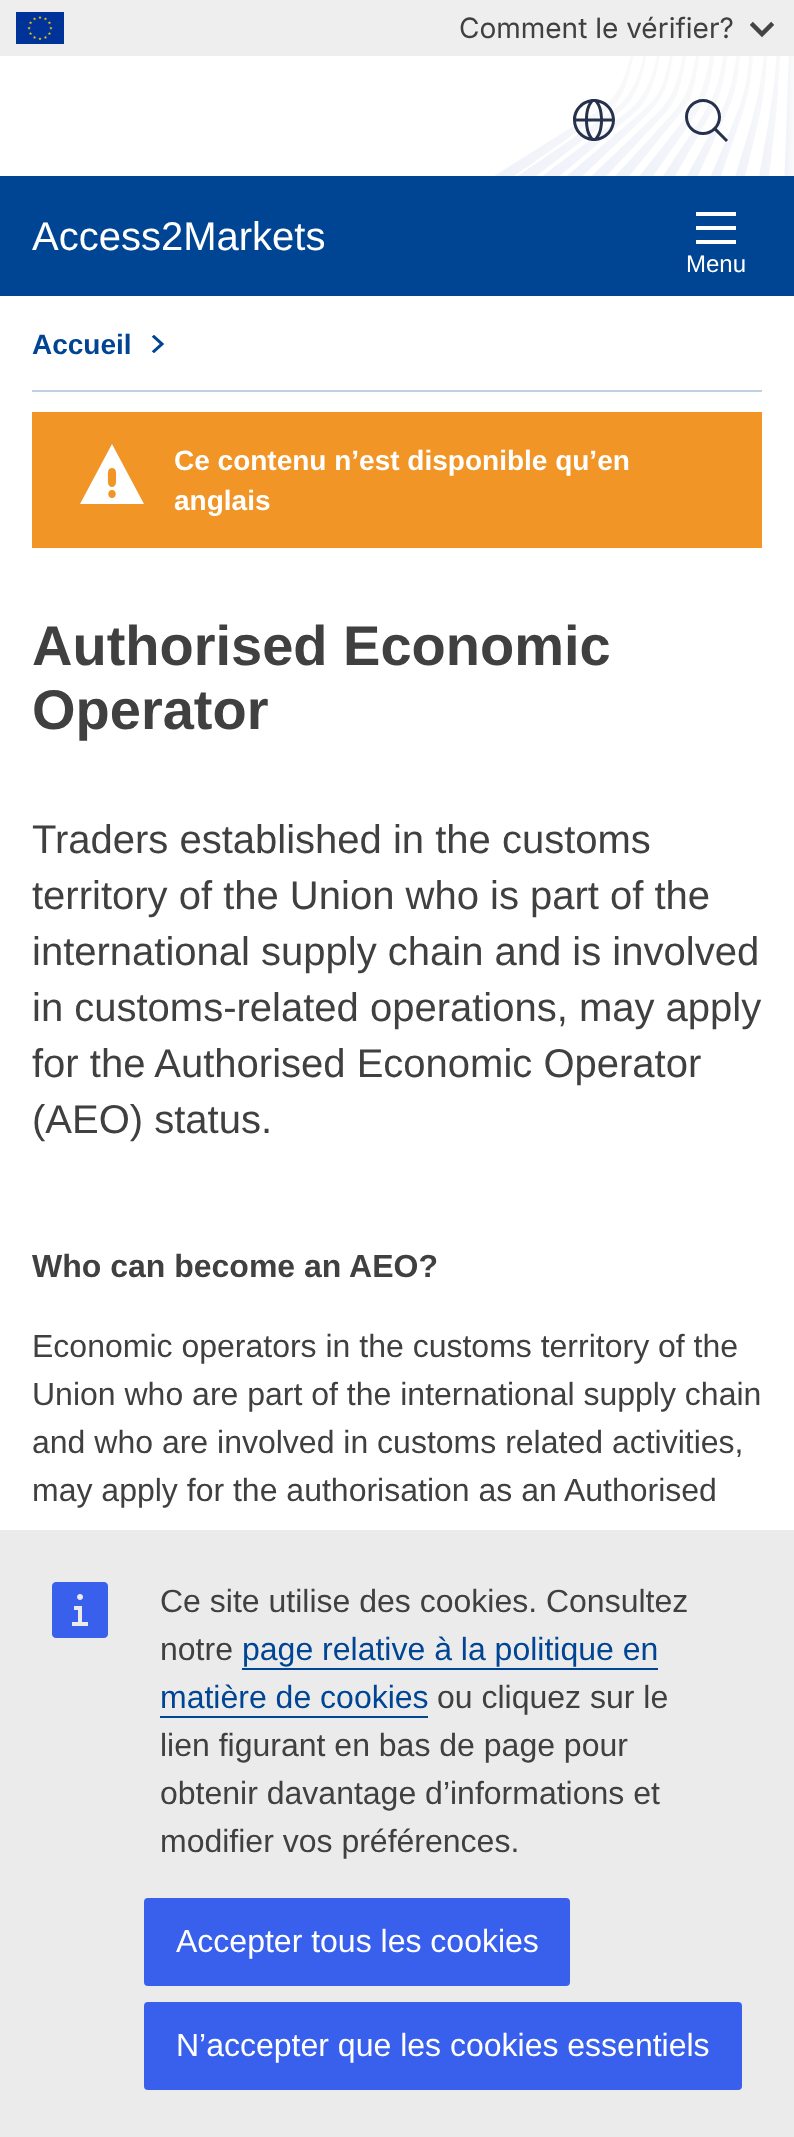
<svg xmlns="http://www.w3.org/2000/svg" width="794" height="2137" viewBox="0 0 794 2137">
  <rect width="100%" height="100%" fill="#ffffff"/>
  <rect x="0" y="0" width="794" height="56" fill="#eeeeee"/>
  <image x="16" y="12" width="48" height="32" href="img1.png"/>
  <text x="459" y="38" font-family="Inter" font-size="28" fill="#404040">Comment le vérifier?</text>
  <image x="750" y="21" width="24" height="17" href="img2.png"/>
  <image x="495" y="56" width="299" height="120" href="img3.png"/>
  <image x="573" y="99" width="42" height="42" href="img4.png"/>
  <image x="685" y="99" width="43" height="43" href="img5.png"/>
  <rect x="0" y="176" width="794" height="120" fill="#004494"/>
  <text x="32" y="250" font-family="Liberation Sans" font-size="40" fill="#ffffff">Access2Markets</text>
  <image x="696" y="212" width="40" height="32" href="img6.png"/>
  <text x="686" y="272" font-family="Liberation Sans" font-size="24" fill="#ffffff">Menu</text>
  <rect x="32" y="390" width="730" height="2" fill="#bfd0e4"/>
  <text x="32" y="354" font-family="Liberation Sans" font-size="28" font-weight="bold" fill="#004494">Accueil</text>
  <image x="151" y="334" width="13" height="20" href="img7.png"/>
  <rect x="32" y="412" width="730" height="136" fill="#f29527"/>
  <path d="M112 444L80 504H144ZM112 498C107 498 107 490 112 490C117 490 117 498 112 498ZM112 487C107 487 108 480 108 477C108 474 107 468 112 468C117 468 116 474 116 477C116 480 117 487 112 487Z" fill="#ffffff"/>
  <text x="174" y="470" font-family="Liberation Sans" font-size="28" font-weight="bold" fill="#ffffff">Ce contenu n’est disponible qu’en</text>
  <text x="174" y="510" font-family="Liberation Sans" font-size="28" font-weight="bold" fill="#ffffff">anglais</text>
  <text x="32" y="665" font-family="Liberation Sans" font-size="56" font-weight="bold" fill="#404040">Authorised Economic</text>
  <text x="32" y="729" font-family="Liberation Sans" font-size="56" font-weight="bold" fill="#404040">Operator</text>
  <text x="32" y="853" font-family="Liberation Sans" font-size="40" fill="#404040">Traders established in the customs</text>
  <text x="32" y="909" font-family="Liberation Sans" font-size="40" fill="#404040">territory of the Union who is part of the</text>
  <text x="32" y="965" font-family="Liberation Sans" font-size="40" fill="#404040">international supply chain and is involved</text>
  <text x="32" y="1021" font-family="Liberation Sans" font-size="40" fill="#404040">in customs-related operations, may apply</text>
  <text x="32" y="1077" font-family="Liberation Sans" font-size="40" fill="#404040">for the Authorised Economic Operator</text>
  <text x="32" y="1133" font-family="Liberation Sans" font-size="40" fill="#404040">(AEO) status.</text>
  <text x="32" y="1277" font-family="Liberation Sans" font-size="32" font-weight="bold" fill="#404040">Who can become an AEO?</text>
  <text x="32" y="1357" font-family="Liberation Sans" font-size="32" fill="#404040">Economic operators in the customs territory of the</text>
  <text x="32" y="1405" font-family="Liberation Sans" font-size="32" fill="#404040">Union who are part of the international supply chain</text>
  <text x="32" y="1453" font-family="Liberation Sans" font-size="32" fill="#404040">and who are involved in customs related activities,</text>
  <text x="32" y="1501" font-family="Liberation Sans" font-size="32" fill="#404040">may apply for the authorisation as an Authorised</text>
  <rect x="0" y="1530" width="794" height="607" fill="#ebebeb"/>
  <image x="52" y="1582" width="56" height="56" href="img8.png"/>
  <text x="160" y="1612" font-family="Liberation Sans" font-size="32" fill="#404040">Ce site utilise des cookies. Consultez</text>
  <text x="160" y="1660" font-family="Liberation Sans" font-size="32" fill="#404040">notre</text>
  <text x="242" y="1660" font-family="Liberation Sans" font-size="32" fill="#004494">page relative à la politique en</text>
  <rect x="242" y="1668" width="416" height="2" fill="#004494"/>
  <text x="160" y="1708" font-family="Liberation Sans" font-size="32" fill="#004494">matière de cookies</text>
  <rect x="160" y="1716" width="268" height="2" fill="#004494"/>
  <text x="437" y="1708" font-family="Liberation Sans" font-size="32" fill="#404040">ou cliquez sur le</text>
  <text x="160" y="1756" font-family="Liberation Sans" font-size="32" fill="#404040">lien figurant en bas de page pour</text>
  <text x="160" y="1804" font-family="Liberation Sans" font-size="32" fill="#404040">obtenir davantage d’informations et</text>
  <text x="160" y="1852" font-family="Liberation Sans" font-size="32" fill="#404040">modifier vos préférences.</text>
  <rect x="144" y="1898" width="426" height="88" rx="4" fill="#3860ed"/>
  <text x="176" y="1952" font-family="Liberation Sans" font-size="32" fill="#ffffff">Accepter tous les cookies</text>
  <rect x="144" y="2002" width="598" height="88" rx="4" fill="#3860ed"/>
  <text x="176" y="2056" font-family="Liberation Sans" font-size="32" fill="#ffffff">N’accepter que les cookies essentiels</text>
</svg>
